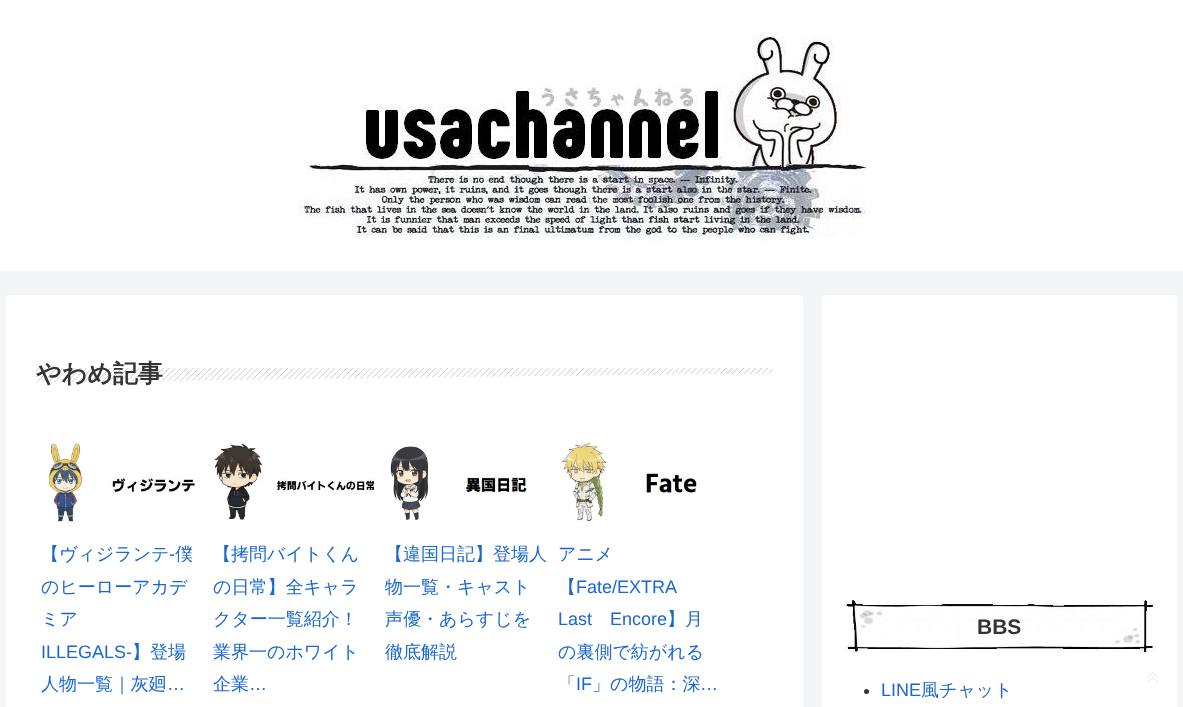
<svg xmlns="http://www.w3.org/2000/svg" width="1183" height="707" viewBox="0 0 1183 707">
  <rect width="100%" height="100%" fill="#f4f5f7"/>
  <rect x="0" y="0" width="1183" height="271" fill="#ffffff"/>
  <image x="298" y="32" width="570" height="211" href="img1.png"/>
  <rect x="6" y="295" width="797" height="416" rx="4" fill="#ffffff"/>
  <image x="36" y="368" width="737" height="15" href="img2.png"/>
  <text x="36" y="382" font-family="WenQuanYi Zen Hei" font-size="25" font-weight="bold" fill="#333333">やわめ記事</text>
  <image x="48" y="443" width="151" height="79" href="img3.png"/>
  <text x="41" y="560" font-family="WenQuanYi Zen Hei" font-size="18" font-weight="500" fill="#1967d2">【ヴィジランテ</text>
  <text x="169" y="560" font-family="Liberation Sans" font-size="18" fill="#1967d2">-</text>
  <text x="175" y="560" font-family="WenQuanYi Zen Hei" font-size="18" font-weight="500" fill="#1967d2">僕</text>
  <text x="41" y="593" font-family="WenQuanYi Zen Hei" font-size="18" font-weight="500" fill="#1967d2">のヒーローアカデ</text>
  <text x="41" y="625" font-family="WenQuanYi Zen Hei" font-size="18" font-weight="500" fill="#1967d2">ミア</text>
  <text x="41" y="658" font-family="Liberation Sans" font-size="18" fill="#1967d2">ILLEGALS-</text>
  <text x="132" y="658" font-family="WenQuanYi Zen Hei" font-size="18" font-weight="500" fill="#1967d2">】登場</text>
  <text x="41" y="690" font-family="WenQuanYi Zen Hei" font-size="18" font-weight="500" fill="#1967d2">人物一覧｜灰廻</text>
  <text x="167" y="690" font-family="Liberation Sans" font-size="18" fill="#1967d2">…</text>
  <image x="215" y="443" width="159" height="78" href="img4.png"/>
  <text x="213" y="560" font-family="WenQuanYi Zen Hei" font-size="18" font-weight="500" fill="#1967d2">【拷問バイトくん</text>
  <text x="213" y="593" font-family="WenQuanYi Zen Hei" font-size="18" font-weight="500" fill="#1967d2">の日常】全キャラ</text>
  <text x="213" y="625" font-family="WenQuanYi Zen Hei" font-size="18" font-weight="500" fill="#1967d2">クター一覧紹介！</text>
  <text x="213" y="658" font-family="WenQuanYi Zen Hei" font-size="18" font-weight="500" fill="#1967d2">業界一のホワイト</text>
  <text x="213" y="690" font-family="WenQuanYi Zen Hei" font-size="18" font-weight="500" fill="#1967d2">企業</text>
  <text x="249" y="690" font-family="Liberation Sans" font-size="18" fill="#1967d2">…</text>
  <image x="390" y="446" width="137" height="74" href="img5.png"/>
  <text x="385" y="560" font-family="WenQuanYi Zen Hei" font-size="18" font-weight="500" fill="#1967d2">【違国日記】登場人</text>
  <text x="385" y="593" font-family="WenQuanYi Zen Hei" font-size="18" font-weight="500" fill="#1967d2">物一覧・キャスト</text>
  <text x="385" y="625" font-family="WenQuanYi Zen Hei" font-size="18" font-weight="500" fill="#1967d2">声優・あらすじを</text>
  <text x="385" y="658" font-family="WenQuanYi Zen Hei" font-size="18" font-weight="500" fill="#1967d2">徹底解説</text>
  <image x="561" y="441" width="139" height="81" href="img6.png"/>
  <text x="558" y="560" font-family="WenQuanYi Zen Hei" font-size="18" font-weight="500" fill="#1967d2">アニメ</text>
  <text x="558" y="593" font-family="WenQuanYi Zen Hei" font-size="18" font-weight="500" fill="#1967d2">【</text>
  <text x="576" y="593" font-family="Liberation Sans" font-size="18" fill="#1967d2">Fate/EXTRA</text>
  <text x="558" y="625" font-family="Liberation Sans" font-size="18" fill="#1967d2">Last</text>
  <text x="610" y="625" font-family="Liberation Sans" font-size="18" fill="#1967d2">Encore</text>
  <text x="667" y="625" font-family="WenQuanYi Zen Hei" font-size="18" font-weight="500" fill="#1967d2">】月</text>
  <text x="558" y="658" font-family="WenQuanYi Zen Hei" font-size="18" font-weight="500" fill="#1967d2">の裏側で紡がれる</text>
  <text x="558" y="690" font-family="WenQuanYi Zen Hei" font-size="18" font-weight="500" fill="#1967d2">「</text>
  <text x="576" y="690" font-family="Liberation Sans" font-size="18" fill="#1967d2">IF</text>
  <text x="592" y="690" font-family="WenQuanYi Zen Hei" font-size="18" font-weight="500" fill="#1967d2">」の物語：深</text>
  <text x="700" y="690" font-family="Liberation Sans" font-size="18" fill="#1967d2">…</text>
  <rect x="822" y="295" width="355" height="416" rx="4" fill="#ffffff"/>
  <image x="841" y="596" width="317" height="62" href="img7.png"/>
  <text x="977" y="634" font-family="Liberation Sans" font-size="21" font-weight="bold" fill="#333333">BBS</text>
  <circle cx="866.5" cy="691.5" r="2.5" fill="#333333"/>
  <text x="881" y="696" font-family="Liberation Sans" font-size="18" fill="#1967d2">LINE</text>
  <text x="921" y="696" font-family="WenQuanYi Zen Hei" font-size="18" font-weight="500" fill="#1967d2">風チャット</text>
  <image x="1147" y="672" width="12" height="11" href="img8.png"/>
</svg>
